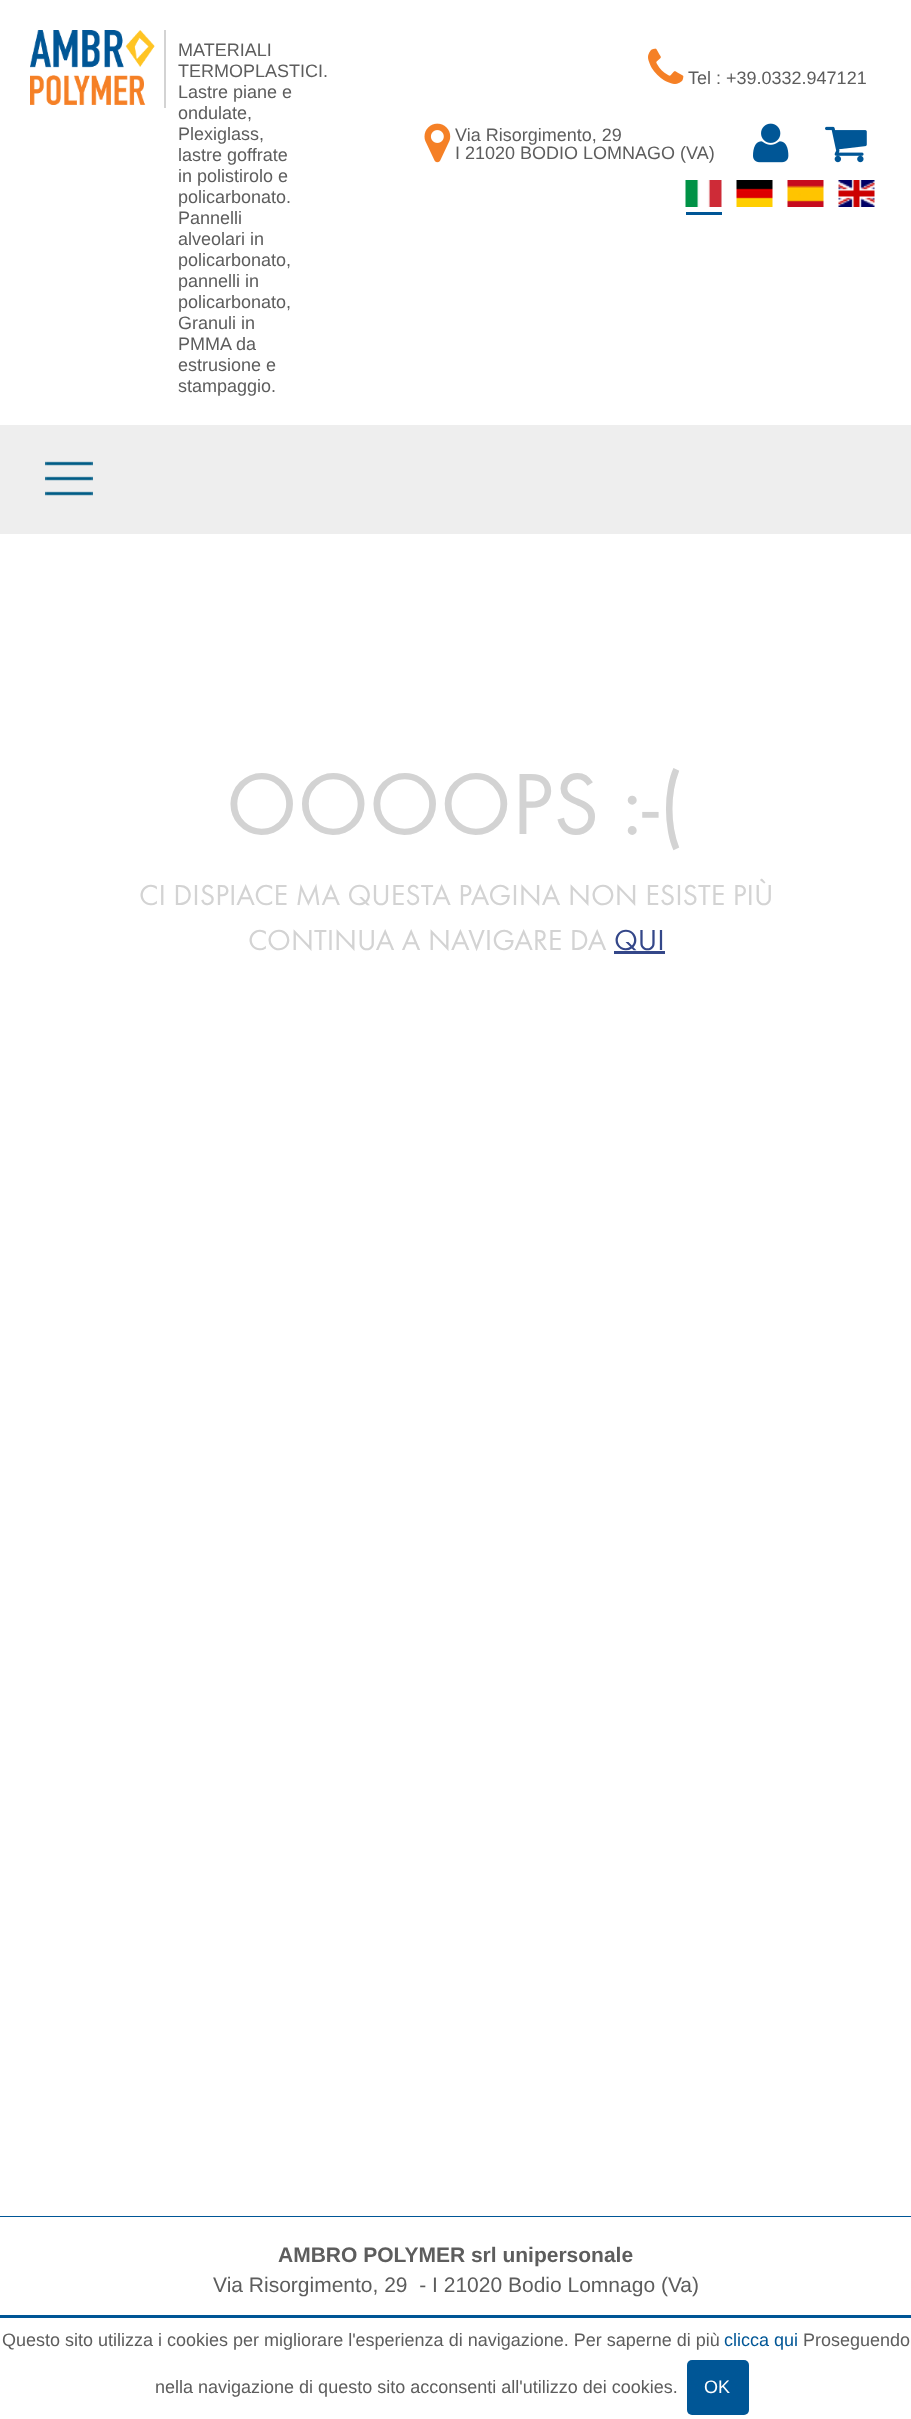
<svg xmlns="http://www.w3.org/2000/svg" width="911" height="2419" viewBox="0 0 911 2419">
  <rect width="100%" height="100%" fill="#ffffff"/>
  <rect x="164" y="30" width="2" height="78" fill="#d3d3d3"/>
  <image x="30" y="30" width="125" height="75" href="img1.png"/>
  <text x="178" y="56" font-family="Liberation Sans" font-size="18" fill="#5d5d5d">MATERIALI</text>
  <text x="178" y="77" font-family="Liberation Sans" font-size="18" fill="#5d5d5d">TERMOPLASTICI.</text>
  <text x="178" y="98" font-family="Liberation Sans" font-size="18" fill="#5d5d5d">Lastre piane e</text>
  <text x="178" y="119" font-family="Liberation Sans" font-size="18" fill="#5d5d5d">ondulate,</text>
  <text x="178" y="140" font-family="Liberation Sans" font-size="18" fill="#5d5d5d">Plexiglass,</text>
  <text x="178" y="161" font-family="Liberation Sans" font-size="18" fill="#5d5d5d">lastre goffrate</text>
  <text x="178" y="182" font-family="Liberation Sans" font-size="18" fill="#5d5d5d">in polistirolo e</text>
  <text x="178" y="203" font-family="Liberation Sans" font-size="18" fill="#5d5d5d">policarbonato.</text>
  <text x="178" y="224" font-family="Liberation Sans" font-size="18" fill="#5d5d5d">Pannelli</text>
  <text x="178" y="245" font-family="Liberation Sans" font-size="18" fill="#5d5d5d">alveolari in</text>
  <text x="178" y="266" font-family="Liberation Sans" font-size="18" fill="#5d5d5d">policarbonato,</text>
  <text x="178" y="287" font-family="Liberation Sans" font-size="18" fill="#5d5d5d">pannelli in</text>
  <text x="178" y="308" font-family="Liberation Sans" font-size="18" fill="#5d5d5d">policarbonato,</text>
  <text x="178" y="329" font-family="Liberation Sans" font-size="18" fill="#5d5d5d">Granuli in</text>
  <text x="178" y="350" font-family="Liberation Sans" font-size="18" fill="#5d5d5d">PMMA da</text>
  <text x="178" y="371" font-family="Liberation Sans" font-size="18" fill="#5d5d5d">estrusione e</text>
  <text x="178" y="392" font-family="Liberation Sans" font-size="18" fill="#5d5d5d">stampaggio.</text>
  <image x="648" y="48" width="36" height="36" href="img2.png"/>
  <text x="688" y="84" font-family="Liberation Sans" font-size="18" fill="#5d5d5d">Tel : +39.0332.947121</text>
  <image x="424" y="123" width="27" height="40" href="img3.png"/>
  <text x="455" y="141" font-family="Liberation Sans" font-size="18" fill="#5d5d5d">Via Risorgimento, 29</text>
  <text x="455" y="159" font-family="Liberation Sans" font-size="18" fill="#5d5d5d">I 21020 BODIO LOMNAGO (VA)</text>
  <image x="753" y="123" width="36" height="40" href="img4.png"/>
  <image x="825" y="126" width="42" height="37" href="img5.png"/>
  <image x="685" y="180" width="37" height="27" href="img6.png"/>
  <image x="736" y="180" width="37" height="27" href="img7.png"/>
  <image x="787" y="180" width="37" height="27" href="img8.png"/>
  <image x="838" y="180" width="37" height="27" href="img9.png"/>
  <rect x="686" y="212" width="36" height="3" fill="#005696"/>
  <rect x="0" y="425" width="911" height="109" fill="#eeeeee"/>
  <image x="45" y="461" width="48" height="35" href="img10.png"/>
  <text x="226" y="834" font-family="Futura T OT" font-size="90" fill="#d3d3d3">OOOOPS :-(</text>
  <text x="139" y="905" font-family="Futura T OT" font-size="30" fill="#d3d3d3">CI DISPIACE MA QUESTA PAGINA NON ESISTE PIÙ</text>
  <text x="248" y="950" font-family="Futura T OT" font-size="30" fill="#d3d3d3">CONTINUA A NAVIGARE DA</text>
  <text x="614" y="950" font-family="Futura T OT" font-size="30" fill="#344789">QUI</text>
  <rect x="614" y="951" width="51" height="3" fill="#344789"/>
  <rect x="0" y="2216" width="911" height="1" fill="#005696"/>
  <text x="278" y="2262" font-family="Liberation Sans" font-size="21" font-weight="bold" fill="#5d5d5d">AMBRO POLYMER srl unipersonale</text>
  <text x="213" y="2292" font-family="Liberation Sans" font-size="21" fill="#5d5d5d" xml:space="preserve">Via Risorgimento, 29  - I 21020 Bodio Lomnago (Va)</text>
  <rect x="0" y="2315" width="911" height="3" fill="#005696"/>
  <text x="2" y="2346" font-family="Liberation Sans" font-size="18" fill="#5d5d5d">Questo sito utilizza i cookies per migliorare l'esperienza di navigazione. Per saperne di più</text>
  <text x="724" y="2346" font-family="Liberation Sans" font-size="18" fill="#005696">clicca qui</text>
  <text x="803" y="2346" font-family="Liberation Sans" font-size="18" fill="#5d5d5d">Proseguendo</text>
  <text x="155" y="2393" font-family="Liberation Sans" font-size="18" fill="#5d5d5d">nella navigazione di questo sito acconsenti all'utilizzo dei cookies.</text>
  <rect x="687" y="2360" width="62" height="55" rx="5" fill="#005696"/>
  <text x="704" y="2393" font-family="Liberation Sans" font-size="18" fill="#ffffff">OK</text>
</svg>
